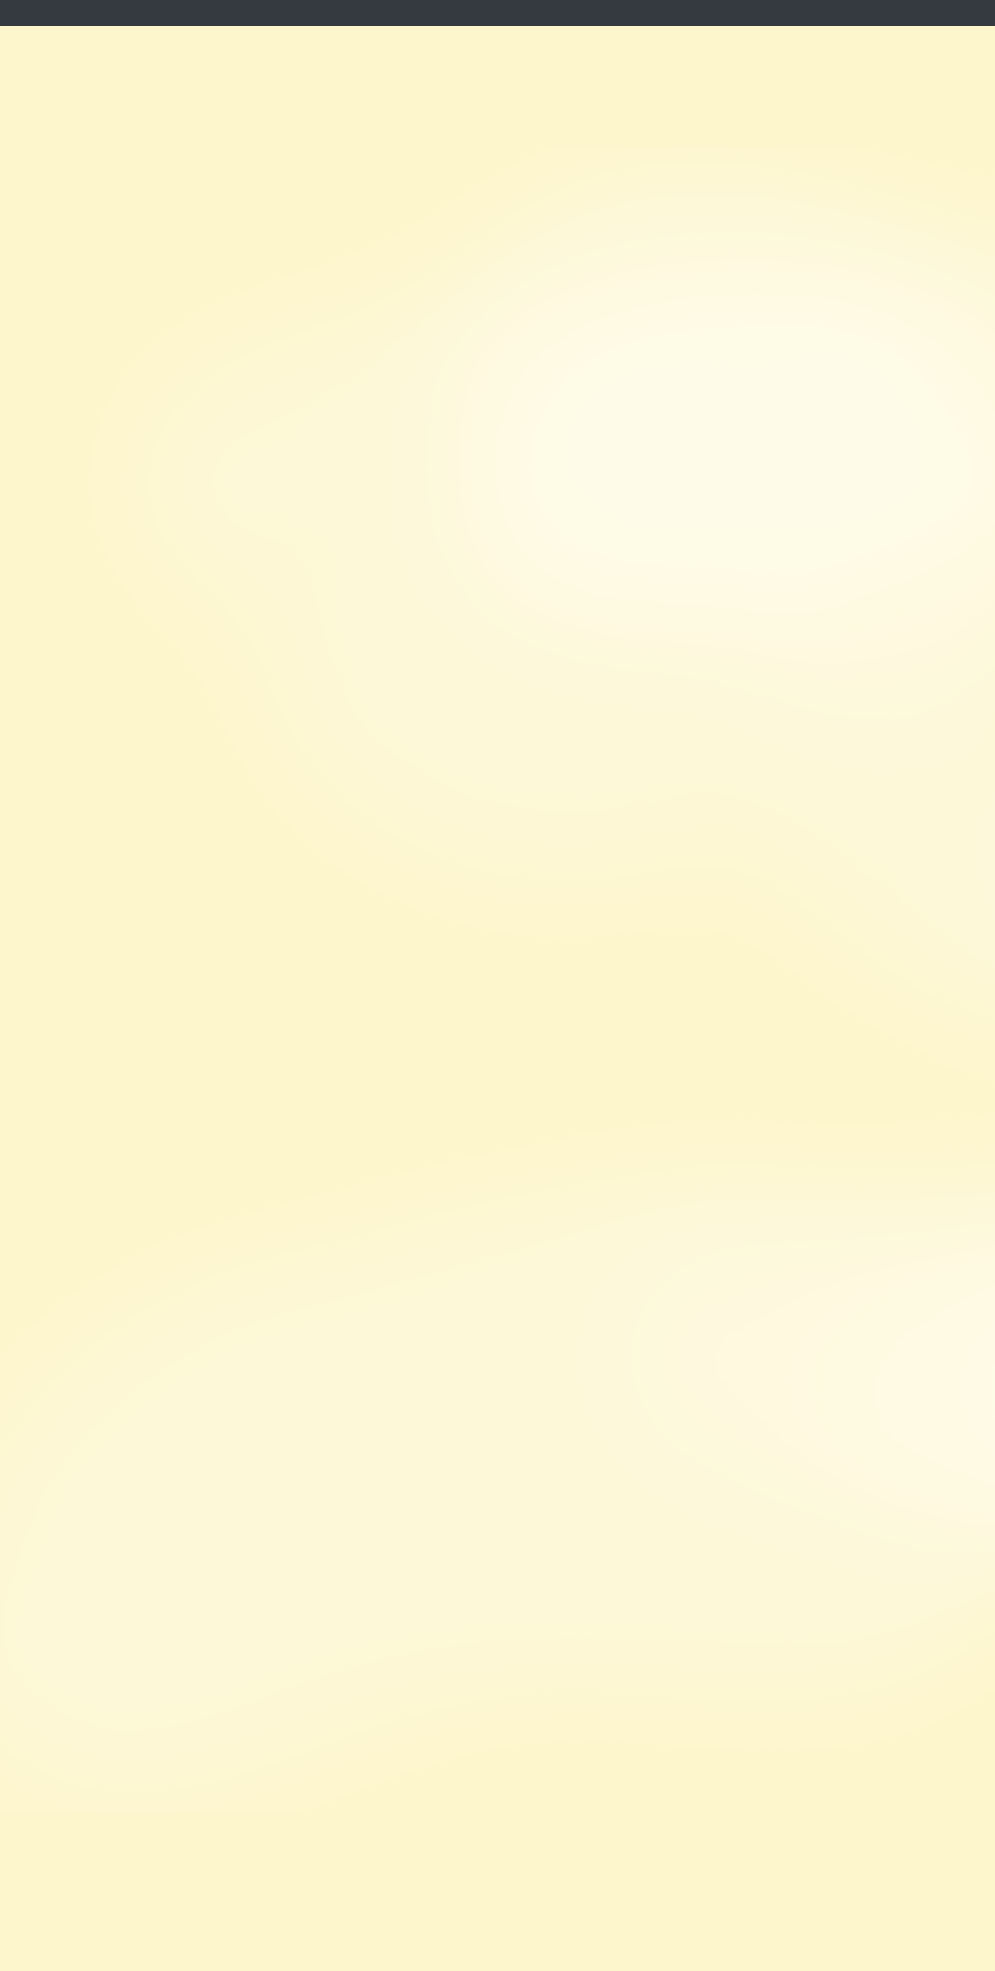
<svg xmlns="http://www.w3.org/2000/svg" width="995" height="1971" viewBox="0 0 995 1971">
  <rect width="100%" height="100%" fill="#fdf6cc"/>
  <image x="0" y="146" width="995" height="1668" href="img1.png"/>
  <rect x="0" y="0" width="995" height="26" fill="#343a40"/>
</svg>
